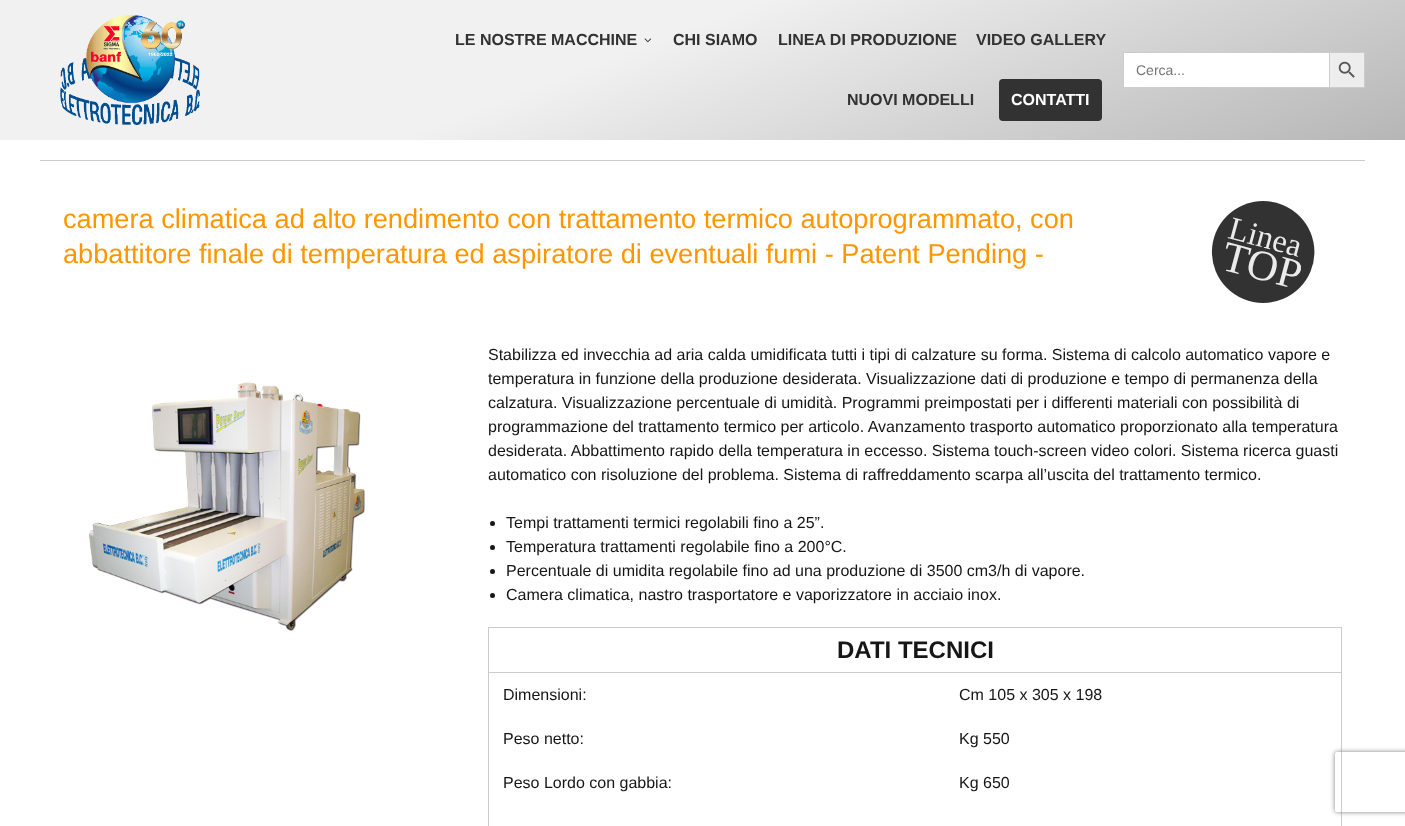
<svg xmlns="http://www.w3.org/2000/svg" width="1405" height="826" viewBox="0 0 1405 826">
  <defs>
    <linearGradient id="g1" gradientUnits="userSpaceOnUse" x1="589" y1="-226" x2="816" y2="366"><stop offset="0.43" stop-color="#f1f1f1"/><stop offset="1" stop-color="#b6b6b6"/></linearGradient>
    <clipPath id="clip1"><path d="M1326 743H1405V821H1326ZM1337 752H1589C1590 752 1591 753 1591 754V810C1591 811 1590 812 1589 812H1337C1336 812 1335 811 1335 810V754C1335 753 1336 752 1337 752Z" clip-rule="evenodd"/></clipPath>
    <filter id="blur1" x="-50%" y="-200%" width="200%" height="500%"><feGaussianBlur stdDeviation="2.5"/></filter>
  </defs>
  <rect width="100%" height="100%" fill="#ffffff"/>
  <rect x="0" y="0" width="1405" height="140" fill="url(#g1)"/>
  <image x="60" y="15" width="140" height="110" href="img1.png"/>
  <text x="455" y="45" font-family="Liberation Sans" font-size="16" font-weight="bold" fill="#323232">LE NOSTRE MACCHINE</text>
  <image x="644" y="38" width="8" height="5" href="img2.png"/>
  <text x="673" y="45" font-family="Liberation Sans" font-size="16" font-weight="bold" fill="#323232">CHI SIAMO</text>
  <text x="778" y="45" font-family="Liberation Sans" font-size="16" font-weight="bold" fill="#323232">LINEA DI PRODUZIONE</text>
  <text x="976" y="45" font-family="Liberation Sans" font-size="16" font-weight="bold" fill="#323232">VIDEO GALLERY</text>
  <text x="847" y="105" font-family="Liberation Sans" font-size="16" font-weight="bold" fill="#323232">NUOVI MODELLI</text>
  <rect x="999" y="79" width="103" height="42" rx="4" fill="#323232"/>
  <text x="1011" y="105" font-family="Liberation Sans" font-size="16" font-weight="bold" fill="#ffffff">CONTATTI</text>
  <rect x="1124" y="53" width="205" height="34" fill="#ffffff"/>
  <rect x="1123" y="52" width="206" height="1" fill="#cccccc"/>
  <rect x="1209" y="87" width="120" height="1" fill="#cccccc"/>
  <rect x="1123" y="52" width="1" height="36" fill="#cccccc"/>
  <text x="1136" y="75" font-family="Liberation Sans" font-size="14" fill="#757575">Cerca...</text>
  <rect x="1329.5" y="52.5" width="35" height="35" fill="#ededed" stroke="#cccccc"/>
  <image x="1338" y="61" width="17" height="17" href="img3.png"/>
  <rect x="40" y="160" width="1325" height="1" fill="#cccccc"/>
  <text x="63" y="228" font-family="Liberation Sans" font-size="27.2" fill="#ff9600">camera climatica ad alto rendimento con trattamento termico autoprogrammato, con</text>
  <text x="63" y="263" font-family="Liberation Sans" font-size="27.2" fill="#ff9600">abbattitore finale di temperatura ed aspiratore di eventuali fumi - Patent Pending -</text>
  <image x="1211" y="201" width="104" height="102" href="img4.png"/>
  <image x="89" y="382" width="276" height="249" href="img5.png"/>
  <text x="488" y="360" font-family="Liberation Sans" font-size="16" fill="#161616">Stabilizza ed invecchia ad aria calda umidificata tutti i tipi di calzature su forma. Sistema di calcolo automatico vapore e</text>
  <text x="488" y="384" font-family="Liberation Sans" font-size="16" fill="#161616">temperatura in funzione della produzione desiderata. Visualizzazione dati di produzione e tempo di permanenza della</text>
  <text x="488" y="408" font-family="Liberation Sans" font-size="16" fill="#161616">calzatura. Visualizzazione percentuale di umidità. Programmi preimpostati per i differenti materiali con possibilità di</text>
  <text x="488" y="432" font-family="Liberation Sans" font-size="16" fill="#161616">programmazione del trattamento termico per articolo. Avanzamento trasporto automatico proporzionato alla temperatura</text>
  <text x="488" y="456" font-family="Liberation Sans" font-size="16" fill="#161616">desiderata. Abbattimento rapido della temperatura in eccesso. Sistema touch-screen video colori. Sistema ricerca guasti</text>
  <text x="488" y="480" font-family="Liberation Sans" font-size="16" fill="#161616">automatico con risoluzione del problema. Sistema di raffreddamento scarpa all’uscita del trattamento termico.</text>
  <circle cx="492.5" cy="523.5" r="2.5" fill="#161616"/>
  <text x="506" y="528" font-family="Liberation Sans" font-size="16" fill="#161616">Tempi trattamenti termici regolabili fino a 25”.</text>
  <circle cx="492.5" cy="547.5" r="2.5" fill="#161616"/>
  <text x="506" y="552" font-family="Liberation Sans" font-size="16" fill="#161616">Temperatura trattamenti regolabile fino a 200°C.</text>
  <circle cx="492.5" cy="571.5" r="2.5" fill="#161616"/>
  <text x="506" y="576" font-family="Liberation Sans" font-size="16" fill="#161616">Percentuale di umidita regolabile fino ad una produzione di 3500 cm3/h di vapore.</text>
  <circle cx="492.5" cy="595.5" r="2.5" fill="#161616"/>
  <text x="506" y="600" font-family="Liberation Sans" font-size="16" fill="#161616">Camera climatica, nastro trasportatore e vaporizzatore in acciaio inox.</text>
  <rect x="488.5" y="627.5" width="853" height="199" fill="none" stroke="#cccccc"/>
  <rect x="489" y="672" width="852" height="1" fill="#cccccc"/>
  <text x="837" y="658" font-family="Liberation Sans" font-size="24" font-weight="bold" fill="#161616">DATI TECNICI</text>
  <text x="503" y="700" font-family="Liberation Sans" font-size="16" fill="#161616">Dimensioni:</text>
  <text x="959" y="700" font-family="Liberation Sans" font-size="16" fill="#161616">Cm 105 x 305 x 198</text>
  <text x="503" y="744" font-family="Liberation Sans" font-size="16" fill="#161616">Peso netto:</text>
  <text x="959" y="744" font-family="Liberation Sans" font-size="16" fill="#161616">Kg 550</text>
  <text x="503" y="788" font-family="Liberation Sans" font-size="16" fill="#161616">Peso Lordo con gabbia:</text>
  <text x="959" y="788" font-family="Liberation Sans" font-size="16" fill="#161616">Kg 650</text>
  <g clip-path="url(#clip1)">
    <rect x="1335" y="752" width="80" height="60" rx="2" fill="#808080" filter="url(#blur1)"/>
  </g>
</svg>
